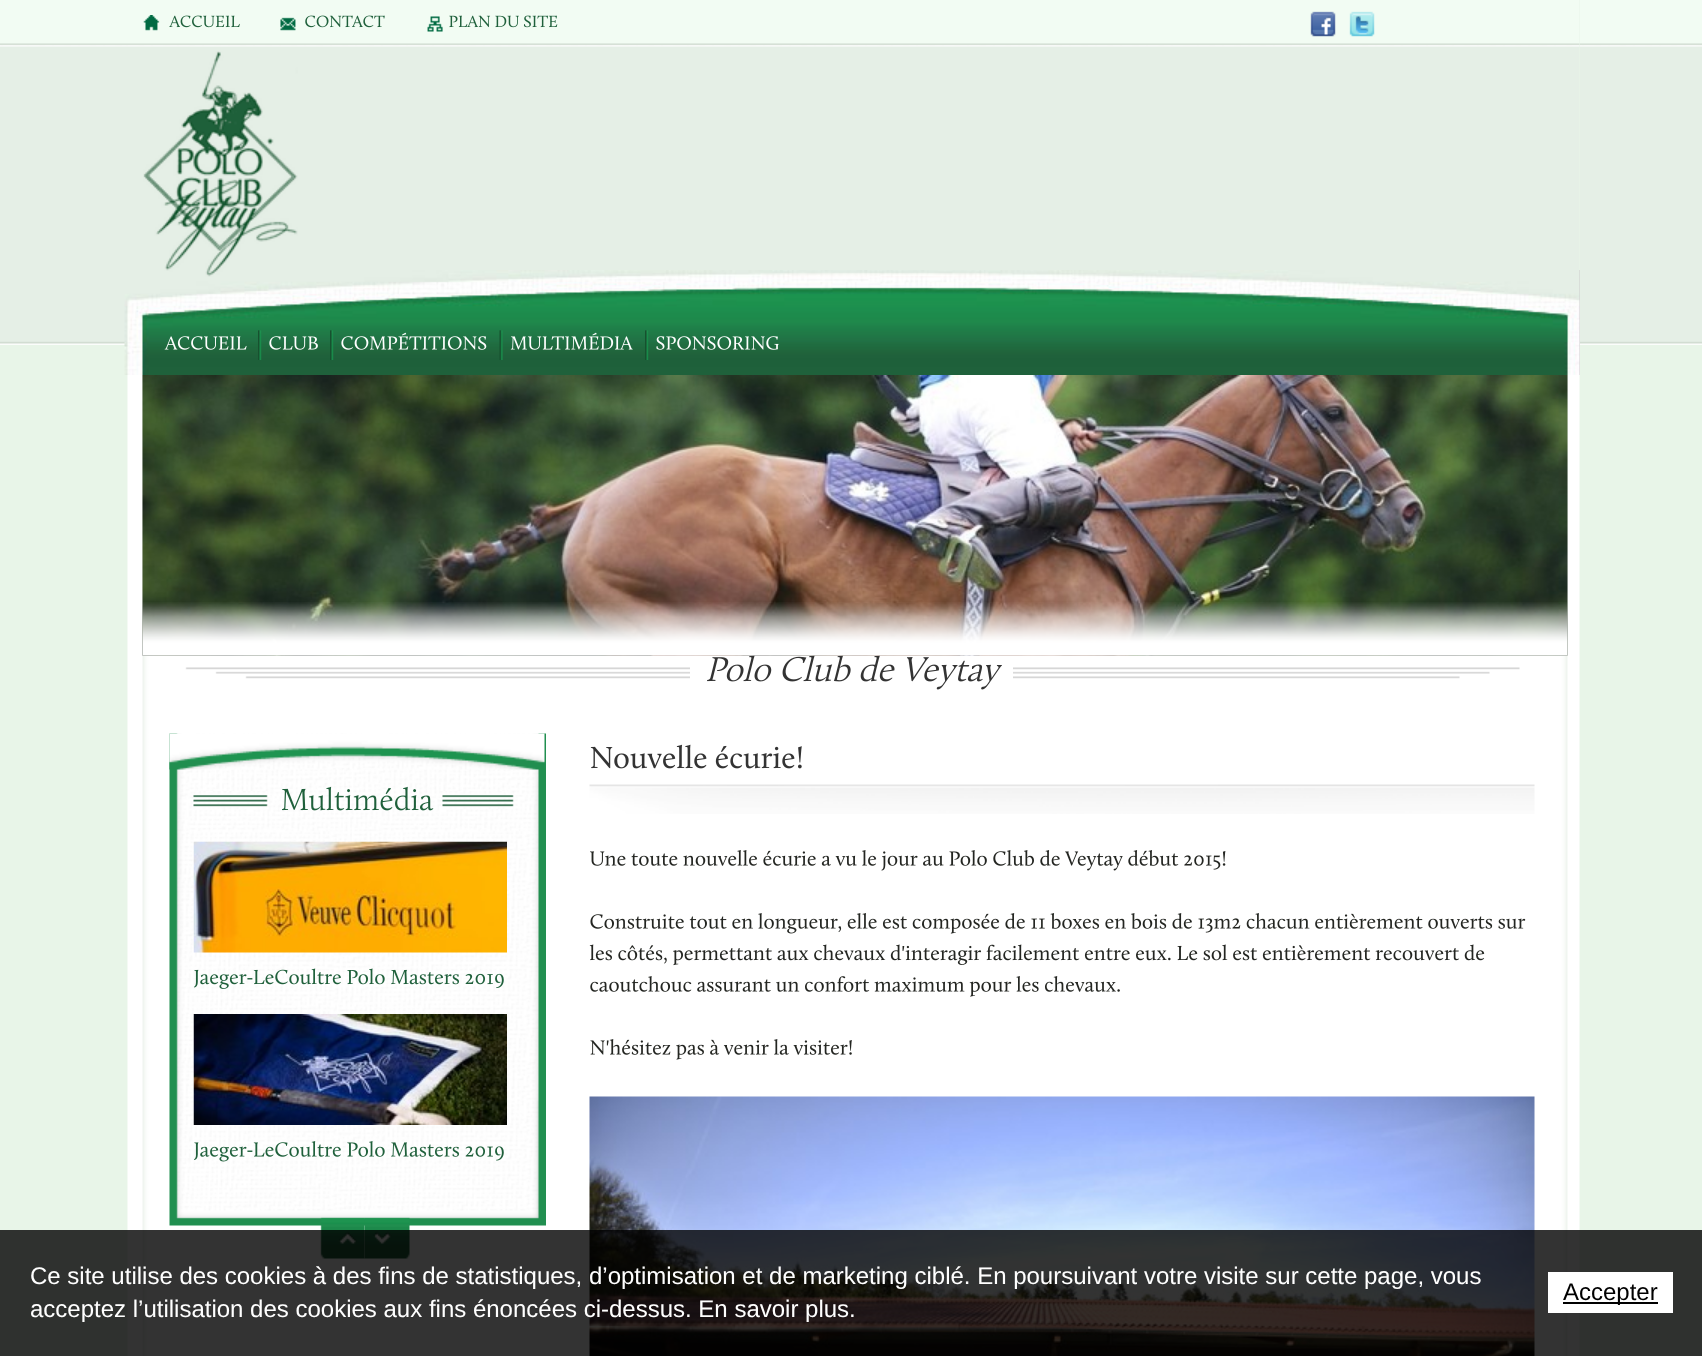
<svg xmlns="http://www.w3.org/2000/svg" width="1702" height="1356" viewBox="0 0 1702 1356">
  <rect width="100%" height="100%" fill="#e8f5e8"/>
  <image x="0" y="0" width="1702" height="345" href="img1.png"/>
  <image x="127" y="375" width="1453" height="981" href="img2.png"/>
  <rect x="1579" y="0" width="1" height="270" fill="#e8f5e8"/>
  <image x="125" y="0" width="1455" height="270" href="img3.png"/>
  <image x="143" y="15" width="17" height="16" href="img4.png"/>
  <image x="169" y="15" width="71" height="13" href="img5.png"/>
  <image x="280" y="17" width="16" height="14" href="img6.png"/>
  <image x="305" y="15" width="80" height="13" href="img7.png"/>
  <image x="427" y="16" width="16" height="16" href="img8.png"/>
  <image x="449" y="15" width="109" height="13" href="img9.png"/>
  <image x="1310" y="11" width="26" height="26" href="img10.png"/>
  <image x="1349" y="11" width="26" height="26" href="img11.png"/>
  <rect x="1579" y="270" width="1" height="105" fill="#cccccc"/>
  <image x="124" y="270" width="1456" height="105" href="img13.png"/>
  <image x="143" y="51" width="155" height="226" href="img12.png"/>
  <image x="164" y="336" width="83" height="14" href="img14.png"/>
  <image x="258" y="330" width="4" height="30" href="img15.png"/>
  <image x="269" y="336" width="49" height="14" href="img16.png"/>
  <image x="330" y="330" width="4" height="30" href="img17.png"/>
  <image x="341" y="332" width="146" height="18" href="img18.png"/>
  <image x="499" y="330" width="4" height="30" href="img19.png"/>
  <image x="510" y="332" width="123" height="18" href="img20.png"/>
  <image x="645" y="330" width="4" height="30" href="img17.png"/>
  <image x="656" y="336" width="123" height="14" href="img21.png"/>
  <image x="185" y="667" width="1335" height="12" href="img25.png"/>
  <rect x="690" y="667" width="323" height="12" fill="#ffffff"/>
  <image x="707" y="655" width="295" height="35" href="img26.png"/>
  <image x="142" y="375" width="1426" height="281" href="img22.png"/>
  <image x="142" y="375" width="1426" height="281" href="img23.png"/>
  <image x="142" y="602" width="1426" height="54" href="img24.png"/>
  <image x="169" y="733" width="377" height="493" href="img27.png"/>
  <image x="169" y="733" width="376" height="37" href="img28.png"/>
  <image x="193" y="791" width="321" height="18" href="img29.png"/>
  <image x="282" y="786" width="152" height="25" href="img30.png"/>
  <image x="193" y="841" width="314" height="112" href="img31.png"/>
  <image x="194" y="968" width="310" height="21" href="img32.png"/>
  <image x="193" y="1014" width="314" height="111" href="img33.png"/>
  <image x="194" y="1141" width="310" height="21" href="img34.png"/>
  <image x="320" y="1217" width="45" height="42" href="img35.png"/>
  <image x="364" y="1217" width="46" height="42" href="img36.png"/>
  <image x="589" y="784" width="946" height="30" href="img37.png"/>
  <image x="590" y="744" width="212" height="25" href="img38.png"/>
  <image x="590" y="850" width="636" height="21" href="img39.png"/>
  <image x="590" y="913" width="936" height="21" href="img40.png"/>
  <image x="589" y="944" width="896" height="22" href="img41.png"/>
  <image x="590" y="976" width="530" height="21" href="img42.png"/>
  <image x="590" y="1039" width="262" height="21" href="img43.png"/>
  <image x="589" y="1096" width="946" height="260" href="img44.png"/>
  <rect x="0" y="1230" width="1702" height="126" fill="#000000" fill-opacity="0.8"/>
  <text x="30" y="1284" font-family="Liberation Sans" font-size="24" fill="#ffffff">Ce site utilise des cookies à des fins de statistiques, d’optimisation et de marketing ciblé. En poursuivant votre visite sur cette page, vous</text>
  <text x="30" y="1317" font-family="Liberation Sans" font-size="24" fill="#ffffff">acceptez l’utilisation des cookies aux fins énoncées ci-dessus. En savoir plus.</text>
  <rect x="1548" y="1272" width="125" height="41" fill="#ffffff"/>
  <rect x="1563" y="1302" width="95" height="2" fill="#000000"/>
  <text x="1563" y="1300" font-family="Liberation Sans" font-size="24" fill="#000000">Accepter</text>
</svg>
